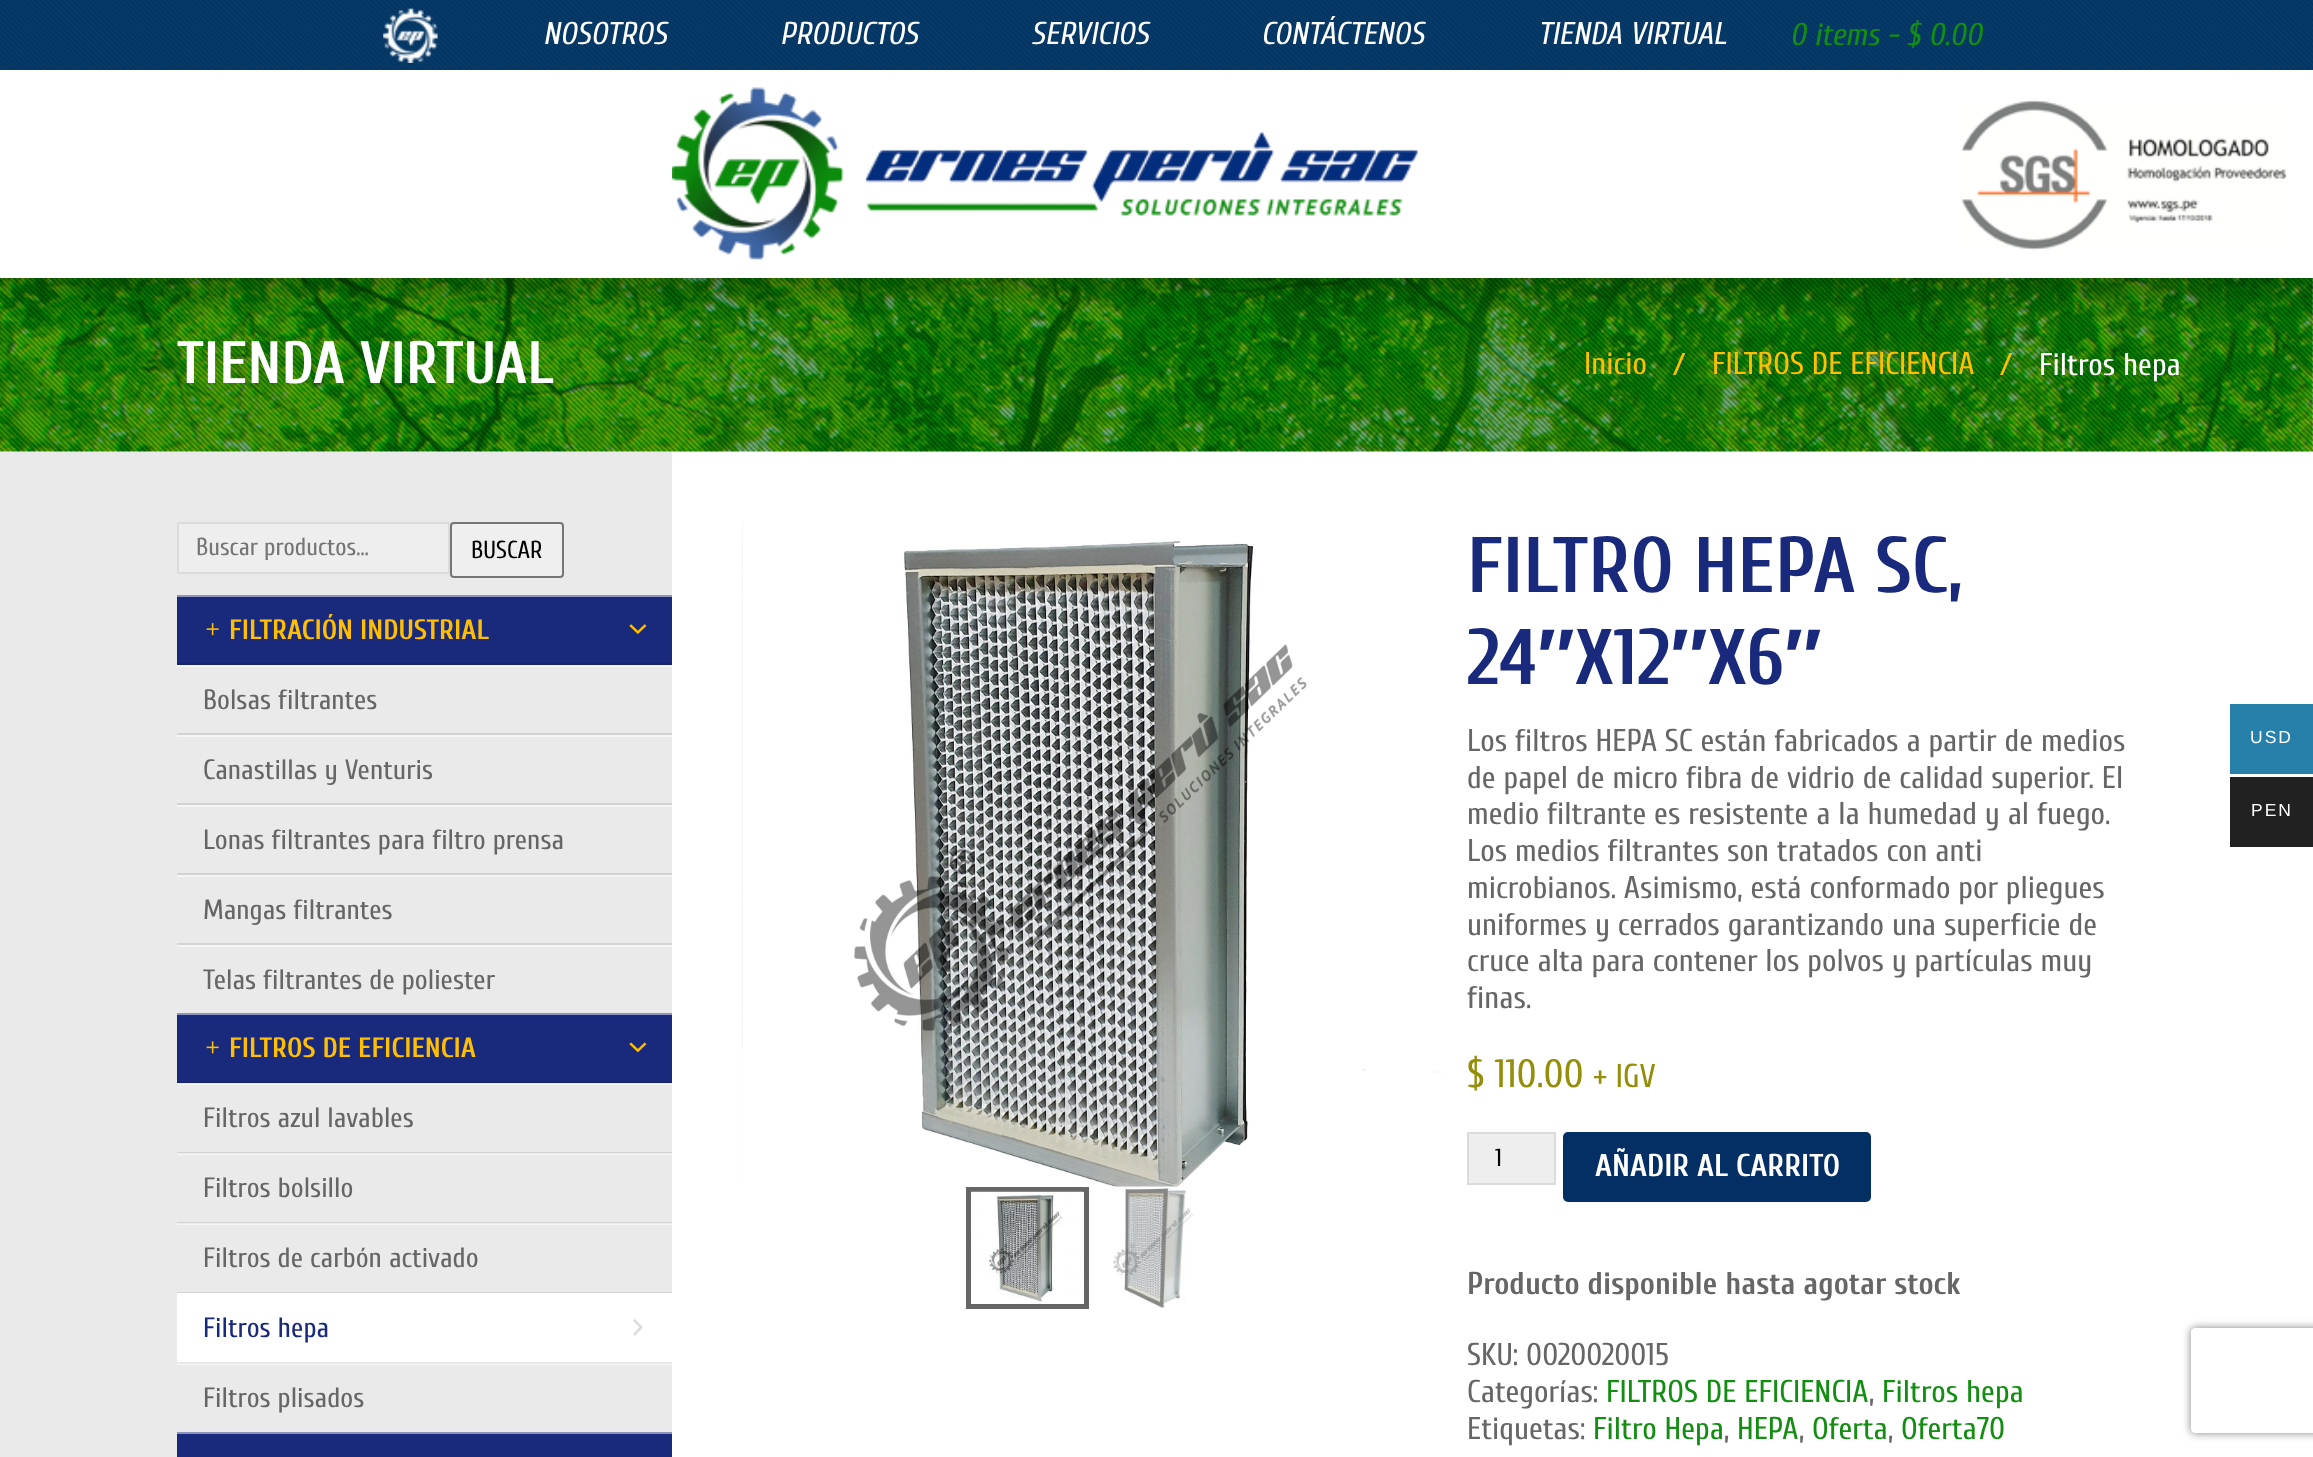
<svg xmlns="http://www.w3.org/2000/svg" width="2313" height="1457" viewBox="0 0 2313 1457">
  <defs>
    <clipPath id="clip1"><rect x="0" y="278" width="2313" height="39"/></clipPath>
    <filter id="blur1" x="-50%" y="-200%" width="200%" height="500%"><feGaussianBlur stdDeviation="15"/></filter>
    <clipPath id="clip2"><path d="M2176 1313H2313V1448H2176ZM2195 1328H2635C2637 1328 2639 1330 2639 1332V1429C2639 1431 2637 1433 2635 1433H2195C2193 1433 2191 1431 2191 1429V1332C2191 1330 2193 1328 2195 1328Z" clip-rule="evenodd"/></clipPath>
    <filter id="blur2" x="-50%" y="-200%" width="200%" height="500%"><feGaussianBlur stdDeviation="4.5"/></filter>
  </defs>
  <rect width="100%" height="100%" fill="#ffffff"/>
  <image x="0" y="278" width="2313" height="174" href="img5.png"/>
  <image x="0" y="278" width="2313" height="174" href="img6.png"/>
  <g clip-path="url(#clip1)">
    <rect x="0" y="18" width="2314" height="278" fill="#000000" fill-opacity="0.25" filter="url(#blur1)"/>
  </g>
  <image x="0" y="0" width="2313" height="70" href="img1.png"/>
  <image x="383" y="8" width="55" height="55" href="img2.png"/>
  <text x="543" y="44" font-family="Cuprum" font-size="31.5" font-style="italic" fill="#ffffff">NOSOTROS</text>
  <text x="780" y="44" font-family="Cuprum" font-size="31.5" font-style="italic" fill="#ffffff">PRODUCTOS</text>
  <text x="1031" y="44" font-family="Cuprum" font-size="31.5" font-style="italic" fill="#ffffff">SERVICIOS</text>
  <text x="1261" y="44" font-family="Cuprum" font-size="31.5" font-style="italic" fill="#ffffff">CONTÁCTENOS</text>
  <text x="1538" y="44" font-family="Cuprum" font-size="31.5" font-style="italic" fill="#ffffff">TIENDA VIRTUAL</text>
  <text x="1790" y="45" font-family="Cuprum" font-size="31.5" font-style="italic" fill="#138e13">0 items - $ 0.00</text>
  <image x="672" y="87" width="746" height="173" href="img3.png"/>
  <image x="1961" y="99" width="327" height="152" href="img4.png"/>
  <text x="177" y="383" font-family="Cuprum" font-size="59.5" font-weight="bold" fill="#ffffff">TIENDA VIRTUAL</text>
  <text x="1584" y="374" font-family="Cuprum" font-size="31.5" fill="#ffbf00">Inicio</text>
  <text x="1673" y="375" font-family="Cuprum" font-size="31.5" fill="#ffbf00">/</text>
  <text x="1712" y="374" font-family="Cuprum" font-size="31.5" fill="#ffbf00">FILTROS DE EFICIENCIA</text>
  <text x="2000" y="375" font-family="Cuprum" font-size="31.5" fill="#ffbf00">/</text>
  <text x="2039" y="375" font-family="Cuprum" font-size="31.5" fill="#ffffff">Filtros hepa</text>
  <rect x="0" y="452" width="672" height="1005" fill="#eaeaea"/>
  <rect x="177" y="1364" width="495" height="1" fill="#f5f5f5"/>
  <rect x="177" y="1224" width="495" height="1" fill="#f5f5f5"/>
  <rect x="177" y="1154" width="495" height="1" fill="#f5f5f5"/>
  <rect x="177" y="1084" width="495" height="1" fill="#f5f5f5"/>
  <rect x="178" y="523" width="271" height="50" fill="#eeeeee" stroke="#dbdbdb" stroke-width="2"/>
  <text x="196" y="555" font-family="Cuprum" font-size="24.5" fill="#757575">Buscar productos…</text>
  <rect x="451" y="523" width="112" height="54" rx="3" fill="#efefef" stroke="#767676" stroke-width="2"/>
  <text x="471" y="558" font-family="Cuprum" font-size="24.5" fill="#000000">BUSCAR</text>
  <rect x="177" y="597" width="495" height="66" fill="#19297c"/>
  <rect x="177" y="595" width="495" height="2" fill="#8c94be"/>
  <rect x="177" y="663" width="495" height="2" fill="#172570"/>
  <image x="206" y="623" width="13" height="13" href="img7.png"/>
  <text x="229" y="639" font-family="Cuprum" font-size="28" font-weight="bold" fill="#ffbf00">FILTRACIÓN INDUSTRIAL</text>
  <image x="629" y="624" width="18" height="10" href="img8.png"/>
  <rect x="177" y="665" width="495" height="2" fill="#f5f5f5"/>
  <rect x="177" y="733" width="495" height="2" fill="#d3d3d3"/>
  <text x="203" y="709" font-family="Cuprum" font-size="28" fill="#666666">Bolsas filtrantes</text>
  <rect x="177" y="735" width="495" height="2" fill="#f5f5f5"/>
  <rect x="177" y="803" width="495" height="2" fill="#d3d3d3"/>
  <text x="203" y="779" font-family="Cuprum" font-size="28" fill="#666666">Canastillas y Venturis</text>
  <rect x="177" y="805" width="495" height="2" fill="#f5f5f5"/>
  <rect x="177" y="873" width="495" height="2" fill="#d3d3d3"/>
  <text x="203" y="849" font-family="Cuprum" font-size="28" fill="#666666">Lonas filtrantes para filtro prensa</text>
  <rect x="177" y="875" width="495" height="2" fill="#f5f5f5"/>
  <rect x="177" y="943" width="495" height="2" fill="#d3d3d3"/>
  <text x="203" y="919" font-family="Cuprum" font-size="28" fill="#666666">Mangas filtrantes</text>
  <rect x="177" y="945" width="495" height="2" fill="#f5f5f5"/>
  <text x="203" y="989" font-family="Cuprum" font-size="28" fill="#666666">Telas filtrantes de poliester</text>
  <rect x="177" y="1015" width="495" height="67" fill="#19297c"/>
  <rect x="177" y="1082" width="495" height="1" fill="#172570"/>
  <rect x="177" y="1013" width="495" height="2" fill="#8c94be"/>
  <image x="206" y="1041" width="13" height="13" href="img9.png"/>
  <text x="229" y="1057" font-family="Cuprum" font-size="28" font-weight="bold" fill="#ffbf00">FILTROS DE EFICIENCIA</text>
  <image x="629" y="1042" width="18" height="11" href="img10.png"/>
  <rect x="177" y="1152" width="495" height="1" fill="#d3d3d3"/>
  <text x="203" y="1127" font-family="Cuprum" font-size="28" fill="#666666">Filtros azul lavables</text>
  <rect x="177" y="1222" width="495" height="1" fill="#d3d3d3"/>
  <text x="203" y="1197" font-family="Cuprum" font-size="28" fill="#666666">Filtros bolsillo</text>
  <rect x="177" y="1292" width="495" height="1" fill="#d3d3d3"/>
  <text x="203" y="1267" font-family="Cuprum" font-size="28" fill="#666666">Filtros de carbón activado</text>
  <rect x="177" y="1293" width="495" height="69" fill="#ffffff"/>
  <rect x="177" y="1362" width="495" height="1" fill="#e6e6e6"/>
  <text x="203" y="1337" font-family="Cuprum" font-size="28" fill="#19297c">Filtros hepa</text>
  <image x="633" y="1319" width="10" height="17" href="img11.png"/>
  <text x="203" y="1407" font-family="Cuprum" font-size="28" fill="#666666">Filtros plisados</text>
  <rect x="177" y="1434" width="495" height="23" fill="#19297c"/>
  <rect x="177" y="1432" width="495" height="2" fill="#8c94be"/>
  <image x="742" y="522" width="700" height="683" href="img12.png"/>
  <rect x="968.5" y="1189.5" width="118" height="117" fill="none" stroke="#666666" stroke-width="5"/>
  <image x="971" y="1191" width="113" height="113" href="img13.png"/>
  <rect x="1116" y="1187" width="67" height="18" fill="#ffffff" fill-opacity="0.3"/>
  <image x="1113" y="1186" width="81" height="123" href="img14.png"/>
  <rect x="1113" y="1187" width="80" height="122" fill="#ffffff" fill-opacity="0.45"/>
  <text x="1467" y="592" font-family="Cuprum" font-size="78.75" font-weight="bold" fill="#19297c">FILTRO HEPA SC,</text>
  <text x="1467" y="684" font-family="Cuprum" font-size="78.75" font-weight="bold" fill="#19297c">24</text>
  <text x="1537" y="684" font-family="Liberation Sans" font-size="78.75" font-weight="bold" fill="#19297c">″</text>
  <text x="1575" y="684" font-family="Cuprum" font-size="78.75" font-weight="bold" fill="#19297c">X12</text>
  <text x="1670" y="684" font-family="Liberation Sans" font-size="78.75" font-weight="bold" fill="#19297c">″</text>
  <text x="1708" y="684" font-family="Cuprum" font-size="78.75" font-weight="bold" fill="#19297c">X6</text>
  <text x="1784" y="684" font-family="Liberation Sans" font-size="78.75" font-weight="bold" fill="#19297c">″</text>
  <text x="1467" y="751" font-family="Cuprum" font-size="31.5" fill="#666666">Los filtros HEPA SC están fabricados a partir de medios</text>
  <text x="1467" y="788" font-family="Cuprum" font-size="31.5" fill="#666666">de papel de micro fibra de vidrio de calidad superior. El</text>
  <text x="1467" y="824" font-family="Cuprum" font-size="31.5" fill="#666666">medio filtrante es resistente a la humedad y al fuego.</text>
  <text x="1467" y="861" font-family="Cuprum" font-size="31.5" fill="#666666">Los medios filtrantes son tratados con anti</text>
  <text x="1467" y="898" font-family="Cuprum" font-size="31.5" fill="#666666">microbianos. Asimismo, está conformado por pliegues</text>
  <text x="1467" y="935" font-family="Cuprum" font-size="31.5" fill="#666666">uniformes y cerrados garantizando una superficie de</text>
  <text x="1467" y="971" font-family="Cuprum" font-size="31.5" fill="#666666">cruce alta para contener los polvos y partículas muy</text>
  <text x="1467" y="1008" font-family="Cuprum" font-size="31.5" fill="#666666">finas.</text>
  <text x="1467" y="1087" font-family="Cuprum" font-size="39.5" fill="#958e09">$ 110.00</text>
  <text x="1593" y="1087" font-family="Cuprum" font-size="33" fill="#958e09">+ IGV</text>
  <rect x="1468" y="1133" width="87" height="51" fill="#eeeeee" stroke="#dbdbdb" stroke-width="2"/>
  <text x="1495" y="1166" font-family="Cuprum" font-size="24.5" fill="#000000">1</text>
  <rect x="1563" y="1132" width="308" height="70" rx="5" fill="#042f65"/>
  <text x="1595" y="1176" font-family="Cuprum" font-size="31.5" font-weight="bold" fill="#ffffff">AÑADIR AL CARRITO</text>
  <text x="1467" y="1294" font-family="Cuprum" font-size="31.5" font-weight="bold" fill="#666666">Producto disponible hasta agotar stock</text>
  <text x="1467" y="1365" font-family="Cuprum" font-size="31.5" fill="#666666">SKU: 0020020015</text>
  <text x="1467" y="1402" font-family="Cuprum" font-size="31.5" fill="#666666">Categorías:</text>
  <text x="1606" y="1402" font-family="Cuprum" font-size="31.5" fill="#138e13">FILTROS DE EFICIENCIA</text>
  <text x="1869" y="1402" font-family="Cuprum" font-size="31.5" fill="#666666">,</text>
  <text x="1882" y="1402" font-family="Cuprum" font-size="31.5" fill="#138e13">Filtros hepa</text>
  <text x="1467" y="1439" font-family="Cuprum" font-size="31.5" fill="#666666">Etiquetas:</text>
  <text x="1593" y="1439" font-family="Cuprum" font-size="31.5" fill="#138e13">Filtro Hepa</text>
  <text x="1724" y="1439" font-family="Cuprum" font-size="31.5" fill="#666666">,</text>
  <text x="1737" y="1439" font-family="Cuprum" font-size="31.5" fill="#138e13">HEPA</text>
  <text x="1799" y="1439" font-family="Cuprum" font-size="31.5" fill="#666666">,</text>
  <text x="1812" y="1439" font-family="Cuprum" font-size="31.5" fill="#138e13">Oferta</text>
  <text x="1888" y="1439" font-family="Cuprum" font-size="31.5" fill="#666666">,</text>
  <text x="1901" y="1439" font-family="Cuprum" font-size="31.5" fill="#138e13">Oferta70</text>
  <rect x="2230" y="704" width="83" height="70" fill="#2680aa"/>
  <text x="2250" y="743" font-family="Liberation Sans" font-size="17.5" letter-spacing="2" fill="#ffffff">USD</text>
  <rect x="2230" y="777" width="83" height="70" fill="#212121"/>
  <text x="2251" y="816" font-family="Liberation Sans" font-size="17.5" letter-spacing="2" fill="#ffffff">PEN</text>
  <g clip-path="url(#clip2)">
    <rect x="2191" y="1328" width="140" height="105" rx="4" fill="#808080" filter="url(#blur2)"/>
  </g>
</svg>
